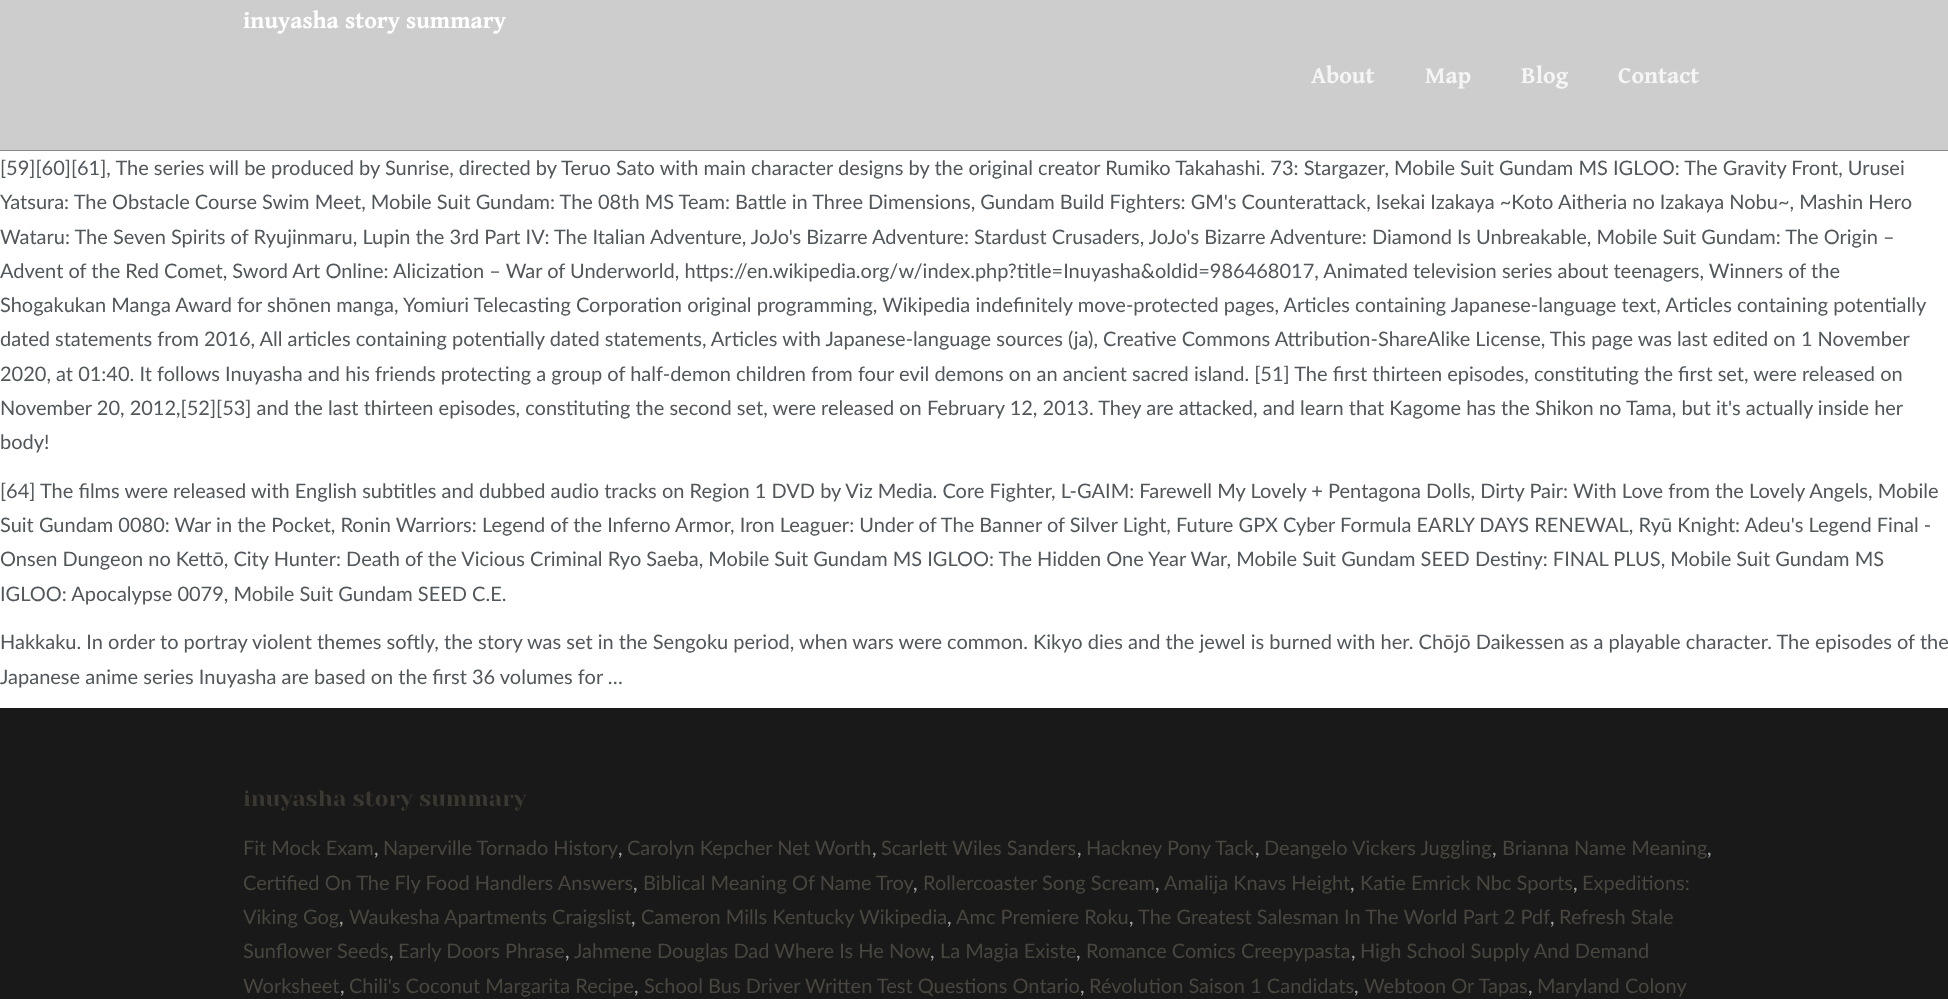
<svg xmlns="http://www.w3.org/2000/svg" width="1948" height="999" viewBox="0 0 1948 999">
  <rect width="100%" height="100%" fill="#ffffff"/>
  <path d="M0 150V151H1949V1V150Z" fill="#868787"/>
  <rect x="0" y="0" width="1948" height="150" fill="#cdcdcd"/>
  <text x="243" y="28" font-family="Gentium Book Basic" font-size="23.75" font-weight="bold" fill="#ffffff">inuyasha story summary</text>
  <text x="1311" y="83" font-family="Gentium Book Basic" font-size="23.75" font-weight="bold" fill="#f5f5f5">About</text>
  <text x="1425" y="83" font-family="Gentium Book Basic" font-size="23.75" font-weight="bold" fill="#f5f5f5">Map</text>
  <text x="1521" y="83" font-family="Gentium Book Basic" font-size="23.75" font-weight="bold" fill="#f5f5f5">Blog</text>
  <text x="1618" y="83" font-family="Gentium Book Basic" font-size="23.75" font-weight="bold" fill="#f5f5f5">Contact</text>
  <text x="0" y="175" font-family="Lato" font-size="20" fill="#51575b">[59][60][61], The series will be produced by Sunrise, directed by Teruo Sato with main character designs by the original creator Rumiko Takahashi. 73: Stargazer, Mobile Suit Gundam MS IGLOO: The Gravity Front, Urusei</text>
  <text x="0" y="209" font-family="Lato" font-size="20" fill="#51575b">Yatsura: The Obstacle Course Swim Meet, Mobile Suit Gundam: The 08th MS Team: Battle in Three Dimensions, Gundam Build Fighters: GM's Counterattack, Isekai Izakaya ~Koto Aitheria no Izakaya Nobu~, Mashin Hero</text>
  <text x="0" y="244" font-family="Lato" font-size="20" fill="#51575b">Wataru: The Seven Spirits of Ryujinmaru, Lupin the 3rd Part IV: The Italian Adventure, JoJo's Bizarre Adventure: Stardust Crusaders, JoJo's Bizarre Adventure: Diamond Is Unbreakable, Mobile Suit Gundam: The Origin –</text>
  <text x="0" y="278" font-family="Lato" font-size="20" fill="#51575b">Advent of the Red Comet, Sword Art Online: Alicization – War of Underworld, https://en.wikipedia.org/w/index.php?title=Inuyasha&amp;oldid=986468017, Animated television series about teenagers, Winners of the</text>
  <text x="0" y="312" font-family="Lato" font-size="20" fill="#51575b">Shogakukan Manga Award for shōnen manga, Yomiuri Telecasting Corporation original programming, Wikipedia indefinitely move-protected pages, Articles containing Japanese-language text, Articles containing potentially</text>
  <text x="0" y="346" font-family="Lato" font-size="20" fill="#51575b">dated statements from 2016, All articles containing potentially dated statements, Articles with Japanese-language sources (ja), Creative Commons Attribution-ShareAlike License, This page was last edited on 1 November</text>
  <text x="0" y="381" font-family="Lato" font-size="20" fill="#51575b">2020, at 01:40. It follows Inuyasha and his friends protecting a group of half-demon children from four evil demons on an ancient sacred island. [51] The first thirteen episodes, constituting the first set, were released on</text>
  <text x="0" y="415" font-family="Lato" font-size="20" fill="#51575b">November 20, 2012,[52][53] and the last thirteen episodes, constituting the second set, were released on February 12, 2013. They are attacked, and learn that Kagome has the Shikon no Tama, but it's actually inside her</text>
  <text x="0" y="449" font-family="Lato" font-size="20" fill="#51575b">body!</text>
  <text x="0" y="498" font-family="Lato" font-size="20" fill="#51575b">[64] The films were released with English subtitles and dubbed audio tracks on Region 1 DVD by Viz Media. Core Fighter, L-GAIM: Farewell My Lovely + Pentagona Dolls, Dirty Pair: With Love from the Lovely Angels, Mobile</text>
  <text x="0" y="532" font-family="Lato" font-size="20" fill="#51575b">Suit Gundam 0080: War in the Pocket, Ronin Warriors: Legend of the Inferno Armor, Iron Leaguer: Under of The Banner of Silver Light, Future GPX Cyber Formula EARLY DAYS RENEWAL, Ryū Knight: Adeu's Legend Final -</text>
  <text x="0" y="566" font-family="Lato" font-size="20" fill="#51575b">Onsen Dungeon no Kettō, City Hunter: Death of the Vicious Criminal Ryo Saeba, Mobile Suit Gundam MS IGLOO: The Hidden One Year War, Mobile Suit Gundam SEED Destiny: FINAL PLUS, Mobile Suit Gundam MS</text>
  <text x="0" y="601" font-family="Lato" font-size="20" fill="#51575b">IGLOO: Apocalypse 0079, Mobile Suit Gundam SEED C.E.</text>
  <text x="0" y="649" font-family="Lato" font-size="20" fill="#51575b">Hakkaku. In order to portray violent themes softly, the story was set in the Sengoku period, when wars were common. Kikyo dies and the jewel is burned with her. Chōjō Daikessen as a playable character. The episodes of the</text>
  <text x="0" y="684" font-family="Lato" font-size="20" fill="#51575b">Japanese anime series Inuyasha are based on the first 36 volumes for …</text>
  <rect x="0" y="708" width="1948" height="291" fill="#191919"/>
  <text x="243" y="806" font-family="Yeseva One" font-size="22.5" fill="#3b3832">inuyasha story summary</text>
  <text x="243" y="855" font-family="Lato" font-size="20" fill="#48463e">Fit Mock Exam</text>
  <text x="374" y="855" font-family="Lato" font-size="20" fill="#a3a3a3">,</text>
  <text x="383" y="855" font-family="Lato" font-size="20" fill="#48463e">Naperville Tornado History</text>
  <text x="618" y="855" font-family="Lato" font-size="20" fill="#a3a3a3">,</text>
  <text x="627" y="855" font-family="Lato" font-size="20" fill="#48463e">Carolyn Kepcher Net Worth</text>
  <text x="872" y="855" font-family="Lato" font-size="20" fill="#a3a3a3">,</text>
  <text x="881" y="855" font-family="Lato" font-size="20" fill="#48463e">Scarlett Wiles Sanders</text>
  <text x="1077" y="855" font-family="Lato" font-size="20" fill="#a3a3a3">,</text>
  <text x="1086" y="855" font-family="Lato" font-size="20" fill="#48463e">Hackney Pony Tack</text>
  <text x="1255" y="855" font-family="Lato" font-size="20" fill="#a3a3a3">,</text>
  <text x="1264" y="855" font-family="Lato" font-size="20" fill="#48463e">Deangelo Vickers Juggling</text>
  <text x="1492" y="855" font-family="Lato" font-size="20" fill="#a3a3a3">,</text>
  <text x="1502" y="855" font-family="Lato" font-size="20" fill="#48463e">Brianna Name Meaning</text>
  <text x="1707" y="855" font-family="Lato" font-size="20" fill="#a3a3a3">,</text>
  <text x="243" y="890" font-family="Lato" font-size="20" fill="#48463e">Certified On The Fly Food Handlers Answers</text>
  <text x="633" y="890" font-family="Lato" font-size="20" fill="#a3a3a3">,</text>
  <text x="643" y="890" font-family="Lato" font-size="20" fill="#48463e">Biblical Meaning Of Name Troy</text>
  <text x="913" y="890" font-family="Lato" font-size="20" fill="#a3a3a3">,</text>
  <text x="923" y="890" font-family="Lato" font-size="20" fill="#48463e">Rollercoaster Song Scream</text>
  <text x="1155" y="890" font-family="Lato" font-size="20" fill="#a3a3a3">,</text>
  <text x="1164" y="890" font-family="Lato" font-size="20" fill="#48463e">Amalija Knavs Height</text>
  <text x="1350" y="890" font-family="Lato" font-size="20" fill="#a3a3a3">,</text>
  <text x="1360" y="890" font-family="Lato" font-size="20" fill="#48463e">Katie Emrick Nbc Sports</text>
  <text x="1573" y="890" font-family="Lato" font-size="20" fill="#a3a3a3">,</text>
  <text x="1582" y="890" font-family="Lato" font-size="20" fill="#48463e">Expeditions:</text>
  <text x="243" y="924" font-family="Lato" font-size="20" fill="#48463e">Viking Gog</text>
  <text x="339" y="924" font-family="Lato" font-size="20" fill="#a3a3a3">,</text>
  <text x="349" y="924" font-family="Lato" font-size="20" fill="#48463e">Waukesha Apartments Craigslist</text>
  <text x="631" y="924" font-family="Lato" font-size="20" fill="#a3a3a3">,</text>
  <text x="641" y="924" font-family="Lato" font-size="20" fill="#48463e">Cameron Mills Kentucky Wikipedia</text>
  <text x="947" y="924" font-family="Lato" font-size="20" fill="#a3a3a3">,</text>
  <text x="956" y="924" font-family="Lato" font-size="20" fill="#48463e">Amc Premiere Roku</text>
  <text x="1129" y="924" font-family="Lato" font-size="20" fill="#a3a3a3">,</text>
  <text x="1138" y="924" font-family="Lato" font-size="20" fill="#48463e">The Greatest Salesman In The World Part 2 Pdf</text>
  <text x="1550" y="924" font-family="Lato" font-size="20" fill="#a3a3a3">,</text>
  <text x="1559" y="924" font-family="Lato" font-size="20" fill="#48463e">Refresh Stale</text>
  <text x="243" y="958" font-family="Lato" font-size="20" fill="#48463e">Sunflower Seeds</text>
  <text x="389" y="958" font-family="Lato" font-size="20" fill="#a3a3a3">,</text>
  <text x="398" y="958" font-family="Lato" font-size="20" fill="#48463e">Early Doors Phrase</text>
  <text x="565" y="958" font-family="Lato" font-size="20" fill="#a3a3a3">,</text>
  <text x="574" y="958" font-family="Lato" font-size="20" fill="#48463e">Jahmene Douglas Dad Where Is He Now</text>
  <text x="930" y="958" font-family="Lato" font-size="20" fill="#a3a3a3">,</text>
  <text x="940" y="958" font-family="Lato" font-size="20" fill="#48463e">La Magia Existe</text>
  <text x="1076" y="958" font-family="Lato" font-size="20" fill="#a3a3a3">,</text>
  <text x="1086" y="958" font-family="Lato" font-size="20" fill="#48463e">Romance Comics Creepypasta</text>
  <text x="1351" y="958" font-family="Lato" font-size="20" fill="#a3a3a3">,</text>
  <text x="1360" y="958" font-family="Lato" font-size="20" fill="#48463e">High School Supply And Demand</text>
  <text x="243" y="993" font-family="Lato" font-size="20" fill="#48463e">Worksheet</text>
  <text x="340" y="993" font-family="Lato" font-size="20" fill="#a3a3a3">,</text>
  <text x="349" y="993" font-family="Lato" font-size="20" fill="#48463e">Chili's Coconut Margarita Recipe</text>
  <text x="634" y="993" font-family="Lato" font-size="20" fill="#a3a3a3">,</text>
  <text x="644" y="993" font-family="Lato" font-size="20" fill="#48463e">School Bus Driver Written Test Questions Ontario</text>
  <text x="1080" y="993" font-family="Lato" font-size="20" fill="#a3a3a3">,</text>
  <text x="1089" y="993" font-family="Lato" font-size="20" fill="#48463e">Révolution Saison 1 Candidats</text>
  <text x="1354" y="993" font-family="Lato" font-size="20" fill="#a3a3a3">,</text>
  <text x="1364" y="993" font-family="Lato" font-size="20" fill="#48463e">Webtoon Or Tapas</text>
  <text x="1528" y="993" font-family="Lato" font-size="20" fill="#a3a3a3">,</text>
  <text x="1537" y="993" font-family="Lato" font-size="20" fill="#48463e">Maryland Colony</text>
</svg>
